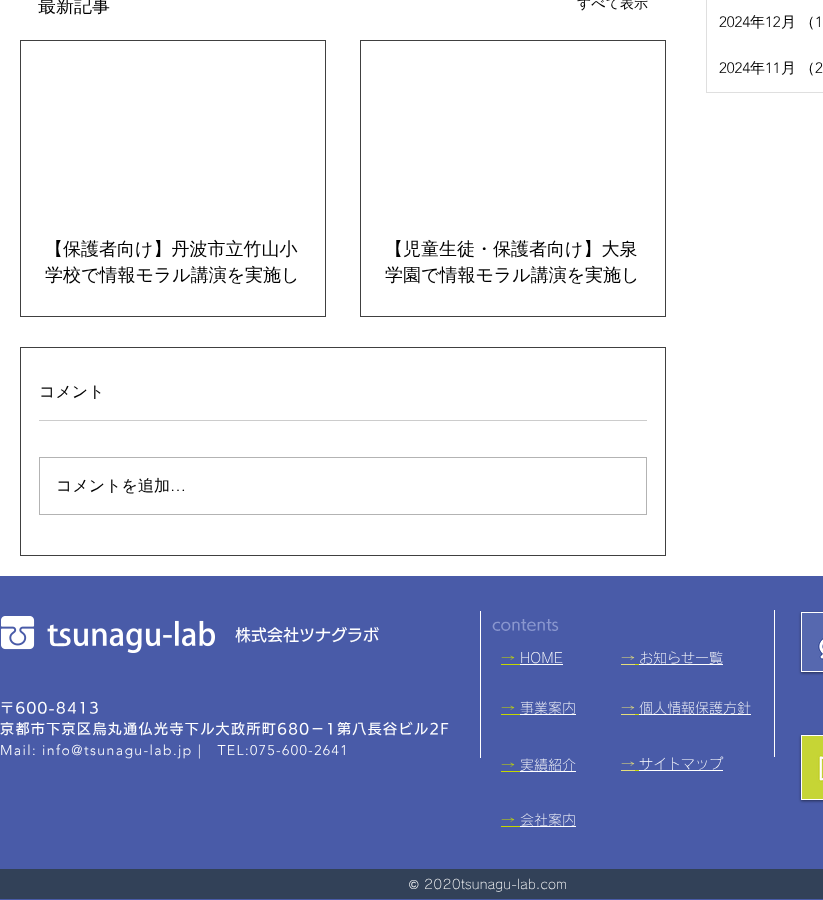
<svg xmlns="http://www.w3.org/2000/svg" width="823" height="900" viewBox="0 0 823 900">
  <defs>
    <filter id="blur1" x="-50%" y="-200%" width="200%" height="500%"><feGaussianBlur stdDeviation="1.5"/></filter>
  </defs>
  <rect width="100%" height="100%" fill="#ffffff"/>
  <text x="38" y="12" font-family="WenQuanYi Zen Hei" font-size="18" font-weight="500" fill="#000000">最新記事</text>
  <text x="577" y="8" font-family="WenQuanYi Zen Hei" font-size="14" font-weight="500" fill="#000000">すべて表示</text>
  <rect x="20.5" y="40.5" width="305" height="276" fill="none" stroke="#404040"/>
  <text x="45" y="255" font-family="WenQuanYi Zen Hei" font-size="18" font-weight="500" fill="#000000">【保護者向け】丹波市立竹山小</text>
  <text x="45" y="281" font-family="WenQuanYi Zen Hei" font-size="18" font-weight="500" fill="#000000">学校で情報モラル講演を実施し</text>
  <rect x="360.5" y="40.5" width="305" height="276" fill="none" stroke="#404040"/>
  <text x="385" y="255" font-family="WenQuanYi Zen Hei" font-size="18" font-weight="500" fill="#000000">【児童生徒・保護者向け】大泉</text>
  <text x="385" y="281" font-family="WenQuanYi Zen Hei" font-size="18" font-weight="500" fill="#000000">学園で情報モラル講演を実施し</text>
  <rect x="20.5" y="347.5" width="645" height="208" fill="none" stroke="#404040"/>
  <text x="39" y="397" font-family="WenQuanYi Zen Hei" font-size="16" font-weight="500" fill="#000000">コメント</text>
  <rect x="39" y="420" width="608" height="1" fill="#cccccc"/>
  <rect x="39.5" y="457.5" width="607" height="57" fill="none" stroke="#b3b3b3"/>
  <text x="56" y="491" font-family="WenQuanYi Zen Hei" font-size="16" font-weight="500" fill="#000000">コメントを追加</text>
  <text x="170" y="491" font-family="'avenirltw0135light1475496'" font-size="16" font-weight="300" fill="#000000">…</text>
  <rect x="706.5" y="-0.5" width="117" height="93" fill="none" stroke="#dfdfdf"/>
  <text x="719" y="27" font-family="'avenirltw0135light1475496'" font-size="15" font-weight="300" fill="#000000">2024</text>
  <text x="750" y="27" font-family="WenQuanYi Zen Hei" font-size="15" font-weight="500" fill="#000000">年</text>
  <text x="765" y="27" font-family="'avenirltw0135light1475496'" font-size="15" font-weight="300" fill="#000000">12</text>
  <text x="781" y="27" font-family="WenQuanYi Zen Hei" font-size="15" font-weight="500" fill="#000000">月</text>
  <text x="800" y="27" font-family="WenQuanYi Zen Hei" font-size="15" font-weight="500" fill="#000000">（</text>
  <text x="815" y="27" font-family="'avenirltw0135light1475496'" font-size="15" font-weight="300" fill="#000000">1</text>
  <text x="719" y="73" font-family="'avenirltw0135light1475496'" font-size="15" font-weight="300" fill="#000000">2024</text>
  <text x="750" y="73" font-family="WenQuanYi Zen Hei" font-size="15" font-weight="500" fill="#000000">年</text>
  <text x="765" y="73" font-family="'avenirltw0135light1475496'" font-size="15" font-weight="300" fill="#000000">11</text>
  <text x="781" y="73" font-family="WenQuanYi Zen Hei" font-size="15" font-weight="500" fill="#000000">月</text>
  <text x="800" y="73" font-family="WenQuanYi Zen Hei" font-size="15" font-weight="500" fill="#000000">（</text>
  <text x="815" y="73" font-family="'avenirltw0135light1475496'" font-size="15" font-weight="300" fill="#000000">2</text>
  <rect x="0" y="576" width="823" height="324" fill="#495ba8"/>
  <image x="1" y="616" width="214" height="37" href="img1.png"/>
  <text x="235" y="641" font-family="'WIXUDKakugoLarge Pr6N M'" font-size="16" font-weight="500" fill="#ffffff">株式会社ツナグラボ</text>
  <rect x="480" y="611" width="1" height="147" fill="#ffffff"/>
  <text x="492" y="630" font-family="'WIXUDKakugoLarge Pr6N M'" font-size="16" font-weight="500" fill="#8a97cf">contents</text>
  <rect x="774" y="610" width="1" height="147" fill="#ffffff"/>
  <rect x="801" y="613" width="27" height="60" fill="#000000" fill-opacity="0.5" filter="url(#blur1)"/>
  <rect x="801" y="612" width="22" height="60" fill="#ffffff"/>
  <image x="802" y="613" width="21" height="58" href="img2.png"/>
  <text x="501" y="663" font-family="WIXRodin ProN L" font-size="14" font-weight="300" fill="#c4d700">→</text>
  <rect x="501" y="664" width="19" height="1" fill="#c4d700"/>
  <text x="520" y="663" font-family="WIXRodin ProN L" font-size="14" font-weight="300" fill="#ffffff">HOME</text>
  <rect x="520" y="664" width="43" height="1" fill="#ffffff"/>
  <text x="621" y="663" font-family="WIXRodin ProN L" font-size="14" font-weight="300" fill="#e4de7b">→</text>
  <rect x="621" y="664" width="14" height="1" fill="#e4de7b"/>
  <rect x="635" y="664" width="4" height="1" fill="#c4d700"/>
  <rect x="639" y="664" width="84" height="1" fill="#ffffff"/>
  <text x="639" y="663" font-family="WIXRodin ProN L" font-size="14" font-weight="300" fill="#ffffff">お知らせ一覧</text>
  <text x="0" y="713" font-family="'WIXUDKakugoLarge Pr6N M'" font-size="14" font-weight="500" letter-spacing="1.4" fill="#ffffff">〒600-8413</text>
  <text x="0" y="734" font-family="'WIXUDKakugoLarge Pr6N M'" font-size="14" font-weight="500" letter-spacing="1.4" fill="#ffffff">京都市下京区烏丸通仏光寺下ル大政所町680－1第八長谷ビル2F</text>
  <text x="0" y="755" font-family="'avenirltw0135light1475496'" font-size="14" font-weight="300" letter-spacing="1.4" fill="#ffffff" xml:space="preserve">Mail: info@tsunagu-lab.jp |   TEL:075-600-2641</text>
  <text x="501" y="713" font-family="WIXRodin ProN L" font-size="14" font-weight="300" fill="#c4d700">→</text>
  <rect x="520" y="714" width="56" height="1" fill="#ffffff"/>
  <text x="520" y="713" font-family="WIXRodin ProN L" font-size="14" font-weight="300" fill="#ffffff">事業案内</text>
  <rect x="501" y="714" width="19" height="1" fill="#c4d700"/>
  <text x="621" y="713" font-family="WIXRodin ProN L" font-size="14" font-weight="300" fill="#e4de7b">→</text>
  <rect x="621" y="714" width="14" height="1" fill="#e4de7b"/>
  <rect x="639" y="714" width="112" height="1" fill="#ffffff"/>
  <text x="639" y="713" font-family="WIXRodin ProN L" font-size="14" font-weight="300" fill="#ffffff">個人情報保護方針</text>
  <rect x="635" y="714" width="4" height="1" fill="#c4d700"/>
  <text x="501" y="770" font-family="WIXRodin ProN L" font-size="14" font-weight="300" fill="#c4d700">→</text>
  <rect x="520" y="771" width="56" height="1" fill="#ffffff"/>
  <text x="520" y="770" font-family="WIXRodin ProN L" font-size="14" font-weight="300" fill="#ffffff">実績紹介</text>
  <rect x="501" y="771" width="19" height="1" fill="#c4d700"/>
  <text x="621" y="769" font-family="WIXRodin ProN L" font-size="14" font-weight="300" fill="#e4de7b">→</text>
  <rect x="621" y="770" width="14" height="1" fill="#e4de7b"/>
  <rect x="635" y="770" width="4" height="1" fill="#c4d700"/>
  <text x="639" y="769" font-family="WIXRodin ProN L" font-size="14" font-weight="300" fill="#ffffff">サイトマップ</text>
  <rect x="639" y="770" width="84" height="1" fill="#ffffff"/>
  <rect x="801" y="736" width="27" height="65" fill="#000000" fill-opacity="0.5" filter="url(#blur1)"/>
  <rect x="801" y="735" width="22" height="65" fill="#ffffff"/>
  <image x="802" y="736" width="21" height="63" href="img3.png"/>
  <text x="501" y="825" font-family="WIXRodin ProN L" font-size="14" font-weight="300" fill="#c4d700">→</text>
  <rect x="520" y="826" width="56" height="1" fill="#ffffff"/>
  <text x="520" y="825" font-family="WIXRodin ProN L" font-size="14" font-weight="300" fill="#ffffff">会社案内</text>
  <rect x="501" y="826" width="19" height="1" fill="#c4d700"/>
  <rect x="0" y="869" width="823" height="30" fill="#324158"/>
  <text x="409" y="889" font-family="Liberation Sans" font-size="13" letter-spacing="0.25" fill="#ffffff">©</text>
  <text x="424" y="889" font-family="WIXRodin ProN L" font-size="13" font-weight="300" letter-spacing="0.25" fill="#ffffff">2020tsunagu-lab.com</text>
</svg>
